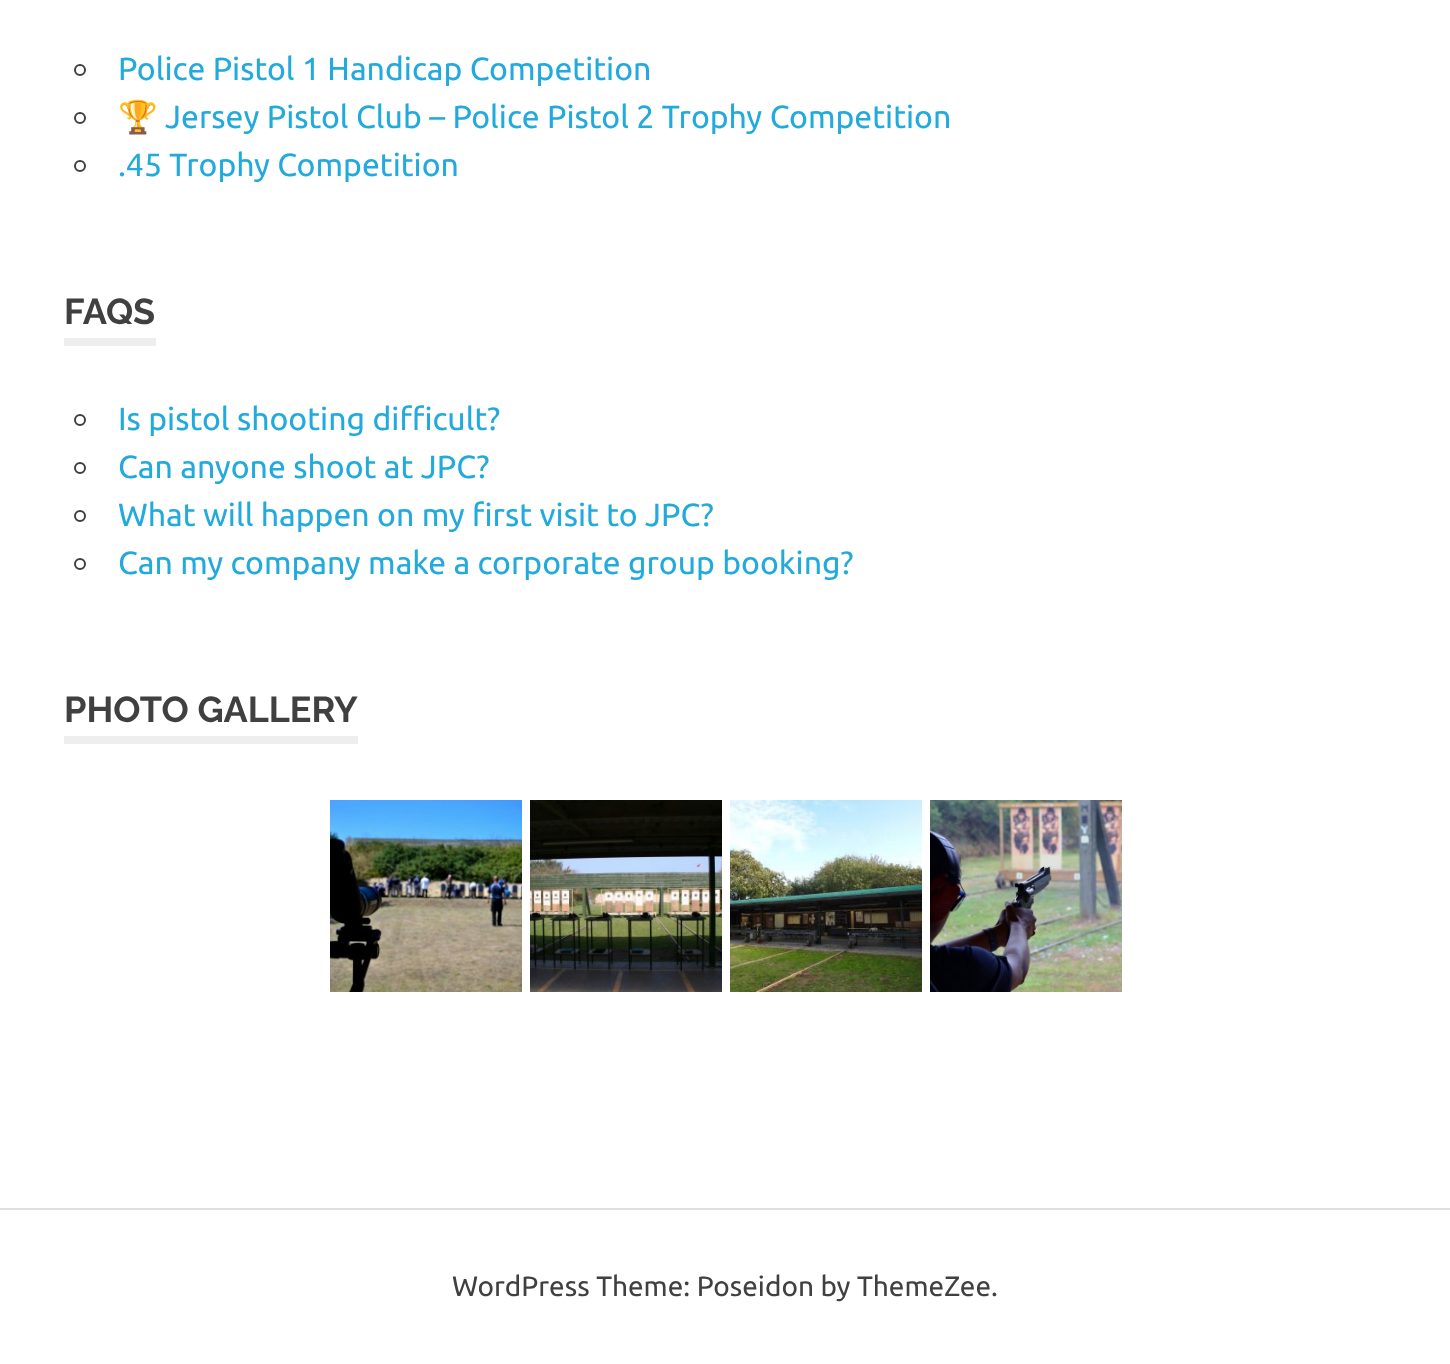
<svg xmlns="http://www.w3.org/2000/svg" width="1450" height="1364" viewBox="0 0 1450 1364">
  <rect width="100%" height="100%" fill="#ffffff"/>
  <circle cx="80" cy="70" r="5" fill="none" stroke="#404040" stroke-width="2"/>
  <text x="118" y="80" font-family="Ubuntu" font-size="32" fill="#22aadd">Police Pistol 1 Handicap Competition</text>
  <circle cx="80" cy="118" r="5" fill="none" stroke="#404040" stroke-width="2"/>
  <text x="118" y="128" font-family="Noto Color Emoji" font-size="32" fill="#22aadd">🏆</text>
  <text x="165" y="128" font-family="Ubuntu" font-size="32" fill="#22aadd">Jersey Pistol Club – Police Pistol 2 Trophy Competition</text>
  <circle cx="80" cy="166" r="5" fill="none" stroke="#404040" stroke-width="2"/>
  <text x="118" y="176" font-family="Ubuntu" font-size="32" fill="#22aadd">.45 Trophy Competition</text>
  <rect x="64" y="338" width="92" height="8" fill="#eeeeee"/>
  <text x="64" y="324" font-family="Raleway" font-size="36" font-weight="100" fill="#404040">FAQS</text>
  <circle cx="80" cy="420" r="5" fill="none" stroke="#404040" stroke-width="2"/>
  <text x="118" y="430" font-family="Ubuntu" font-size="32" fill="#22aadd">Is pistol shooting difficult?</text>
  <circle cx="80" cy="468" r="5" fill="none" stroke="#404040" stroke-width="2"/>
  <text x="118" y="478" font-family="Ubuntu" font-size="32" fill="#22aadd">Can anyone shoot at JPC?</text>
  <circle cx="80" cy="516" r="5" fill="none" stroke="#404040" stroke-width="2"/>
  <text x="118" y="526" font-family="Ubuntu" font-size="32" fill="#22aadd">What will happen on my first visit to JPC?</text>
  <circle cx="80" cy="564" r="5" fill="none" stroke="#404040" stroke-width="2"/>
  <text x="118" y="574" font-family="Ubuntu" font-size="32" fill="#22aadd">Can my company make a corporate group booking?</text>
  <rect x="64" y="736" width="294" height="8" fill="#eeeeee"/>
  <text x="64" y="722" font-family="Raleway" font-size="36" font-weight="100" fill="#404040">PHOTO GALLERY</text>
  <image x="330" y="800" width="192" height="192" href="img1.png"/>
  <image x="530" y="800" width="192" height="192" href="img2.png"/>
  <image x="730" y="800" width="192" height="192" href="img3.png"/>
  <image x="930" y="800" width="192" height="192" href="img4.png"/>
  <rect x="0" y="1208" width="1450" height="2" fill="#e0e0e0"/>
  <text x="452" y="1296" font-family="Ubuntu" font-size="28" fill="#404040">WordPress Theme: Poseidon by ThemeZee.</text>
</svg>
